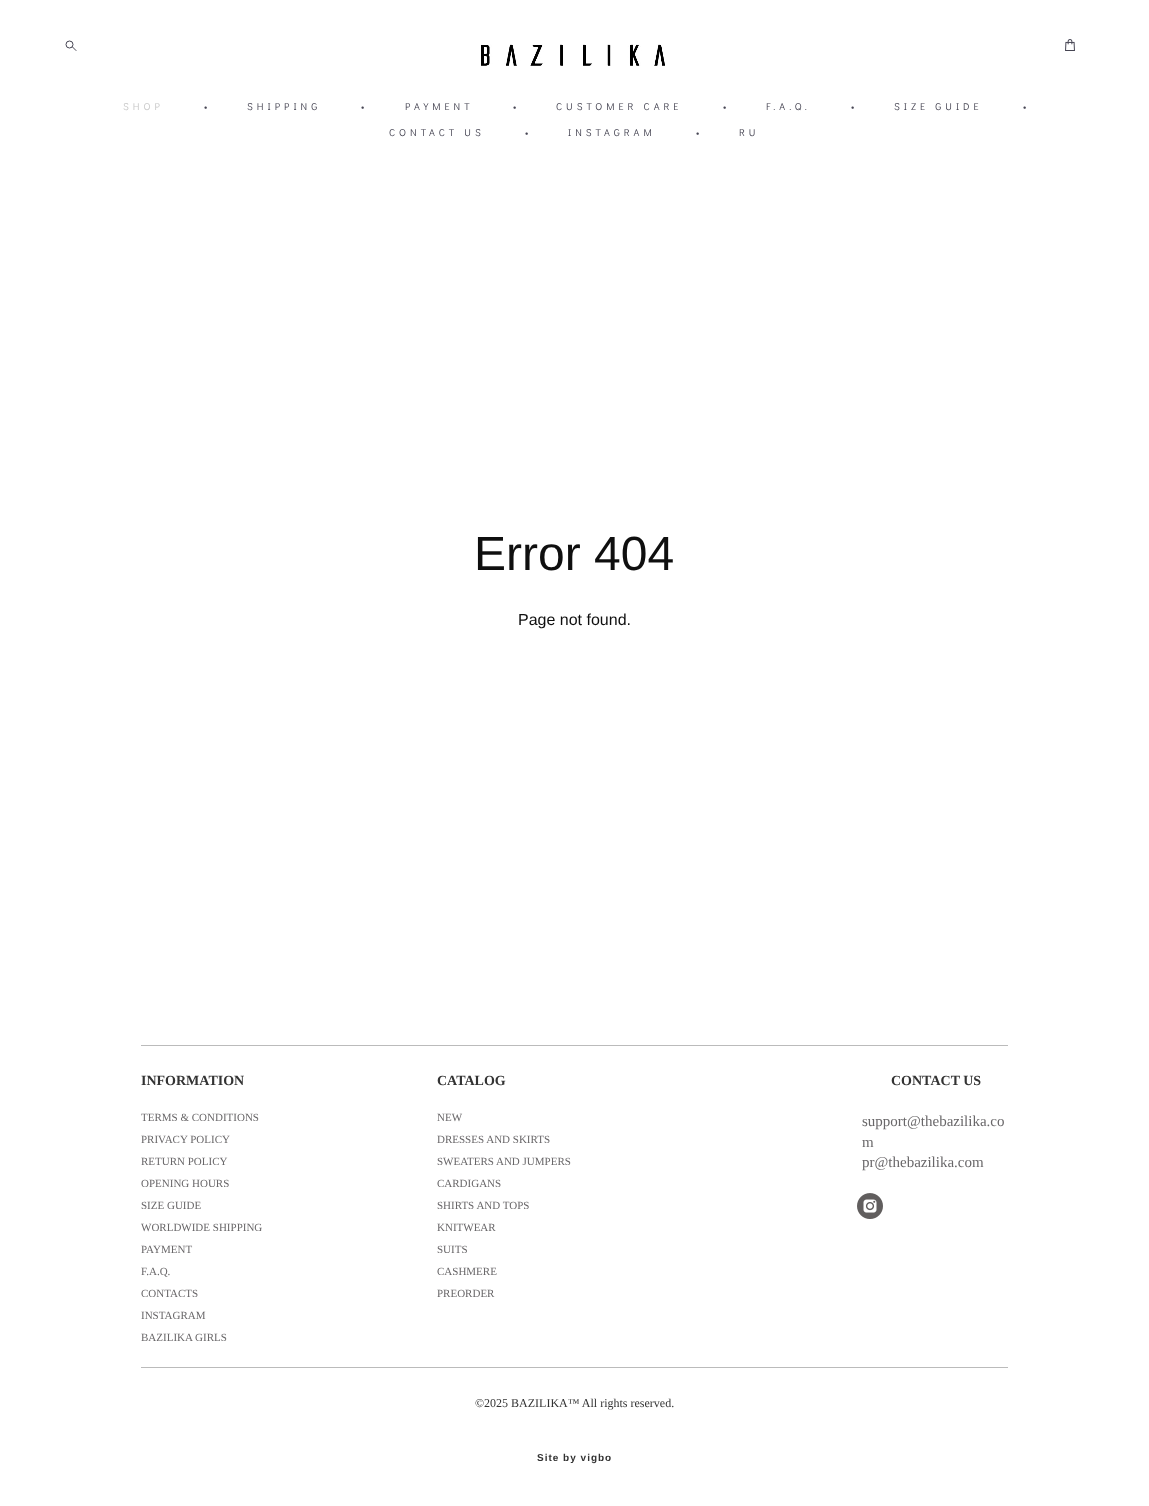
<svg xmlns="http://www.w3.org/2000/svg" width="1149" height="1506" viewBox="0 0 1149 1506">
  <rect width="100%" height="100%" fill="#ffffff"/>
  <circle cx="69.5" cy="44.5" r="3.5" fill="none" stroke="#464553"/>
  <path d="M72.5 47L76 50.5" fill="none" stroke="#464553" stroke-linecap="round" stroke-linejoin="round"/>
  <image x="481" y="44" width="184" height="22" href="img1.png"/>
  <image x="1065" y="39" width="10" height="12" href="img2.png"/>
  <text x="123" y="110" font-family="Didact Gothic" font-size="10" letter-spacing="4" fill="#c7c7c7">SHOP</text>
  <text x="204" y="110" font-family="Didact Gothic" font-size="10" fill="#464553">•</text>
  <text x="247" y="110" font-family="Didact Gothic" font-size="10" letter-spacing="4" fill="#464553">SHIPPING</text>
  <text x="361" y="110" font-family="Didact Gothic" font-size="10" fill="#464553">•</text>
  <text x="405" y="110" font-family="Didact Gothic" font-size="10" letter-spacing="4" fill="#464553">PAYMENT</text>
  <text x="513" y="110" font-family="Didact Gothic" font-size="10" fill="#464553">•</text>
  <text x="556" y="110" font-family="Didact Gothic" font-size="10" letter-spacing="4" fill="#464553">CUSTOMER CARE</text>
  <text x="723" y="110" font-family="Didact Gothic" font-size="10" fill="#464553">•</text>
  <text x="766" y="110" font-family="Didact Gothic" font-size="10" letter-spacing="4" fill="#464553">F.A.Q.</text>
  <text x="851" y="110" font-family="Didact Gothic" font-size="10" fill="#464553">•</text>
  <text x="894" y="110" font-family="Didact Gothic" font-size="10" letter-spacing="4" fill="#464553">SIZE GUIDE</text>
  <text x="1023" y="110" font-family="Didact Gothic" font-size="10" fill="#464553">•</text>
  <text x="389" y="136" font-family="Didact Gothic" font-size="10" letter-spacing="4" fill="#464553">CONTACT US</text>
  <text x="525" y="136" font-family="Didact Gothic" font-size="10" fill="#464553">•</text>
  <text x="568" y="136" font-family="Didact Gothic" font-size="10" letter-spacing="4" fill="#464553">INSTAGRAM</text>
  <text x="696" y="136" font-family="Didact Gothic" font-size="10" fill="#464553">•</text>
  <text x="739" y="136" font-family="Didact Gothic" font-size="10" letter-spacing="4" fill="#464553">RU</text>
  <text x="474" y="570" font-family="Liberation Sans" font-size="48" fill="#0f0f0f">Error 404</text>
  <text x="518" y="625" font-family="Liberation Sans" font-size="16" fill="#0f0f0f">Page not found.</text>
  <rect x="141" y="1045" width="867" height="1" fill="#bbbbbb"/>
  <text x="141" y="1085" font-family="Liberation Serif" font-size="14" font-weight="bold" fill="#333333">INFORMATION</text>
  <text x="141" y="1121" font-family="Liberation Serif" font-size="11" fill="#696769">TERMS &amp; CONDITIONS</text>
  <text x="141" y="1143" font-family="Liberation Serif" font-size="11" fill="#696769">PRIVACY POLICY</text>
  <text x="141" y="1165" font-family="Liberation Serif" font-size="11" fill="#696769">RETURN POLICY</text>
  <text x="141" y="1187" font-family="Liberation Serif" font-size="11" fill="#696769">OPENING HOURS</text>
  <text x="141" y="1209" font-family="Liberation Serif" font-size="11" fill="#696769">SIZE GUIDE</text>
  <text x="141" y="1231" font-family="Liberation Serif" font-size="11" fill="#696769">WORLDWIDE SHIPPING</text>
  <text x="141" y="1253" font-family="Liberation Serif" font-size="11" fill="#696769">PAYMENT</text>
  <text x="141" y="1275" font-family="Liberation Serif" font-size="11" fill="#696769">F.A.Q.</text>
  <text x="141" y="1297" font-family="Liberation Serif" font-size="11" fill="#696769">CONTACTS</text>
  <text x="141" y="1319" font-family="Liberation Serif" font-size="11" fill="#696769">INSTAGRAM</text>
  <text x="141" y="1341" font-family="Liberation Serif" font-size="11" fill="#696769">BAZILIKA GIRLS</text>
  <text x="437" y="1085" font-family="Liberation Serif" font-size="14" font-weight="bold" fill="#333333">CATALOG</text>
  <text x="437" y="1121" font-family="Liberation Serif" font-size="11" fill="#696769">NEW</text>
  <text x="437" y="1143" font-family="Liberation Serif" font-size="11" fill="#696769">DRESSES AND SKIRTS</text>
  <text x="437" y="1165" font-family="Liberation Serif" font-size="11" fill="#696769">SWEATERS AND JUMPERS</text>
  <text x="437" y="1187" font-family="Liberation Serif" font-size="11" fill="#696769">CARDIGANS</text>
  <text x="437" y="1209" font-family="Liberation Serif" font-size="11" fill="#696769">SHIRTS AND TOPS</text>
  <text x="437" y="1231" font-family="Liberation Serif" font-size="11" fill="#696769">KNITWEAR</text>
  <text x="437" y="1253" font-family="Liberation Serif" font-size="11" fill="#696769">SUITS</text>
  <text x="437" y="1275" font-family="Liberation Serif" font-size="11" fill="#696769">CASHMERE</text>
  <text x="437" y="1297" font-family="Liberation Serif" font-size="11" fill="#696769">PREORDER</text>
  <text x="891" y="1085" font-family="Liberation Serif" font-size="14" font-weight="bold" fill="#333333">CONTACT US</text>
  <text x="862" y="1126" font-family="Liberation Serif" font-size="15" fill="#696769">support@thebazilika.co</text>
  <text x="862" y="1147" font-family="Liberation Serif" font-size="15" fill="#696769">m</text>
  <text x="862" y="1167" font-family="Liberation Serif" font-size="15" fill="#696769">pr@thebazilika.com</text>
  <image x="857" y="1193" width="26" height="26" href="img3.png"/>
  <rect x="141" y="1367" width="867" height="1" fill="#bbbbbb"/>
  <text x="475" y="1407" font-family="Liberation Serif" font-size="12" fill="#333333">©2025 BAZILIKA™ All rights reserved.</text>
  <text x="537" y="1461" font-family="Liberation Sans" font-size="10" font-weight="bold" letter-spacing="1" fill="#333333">Site by vigbo</text>
</svg>
